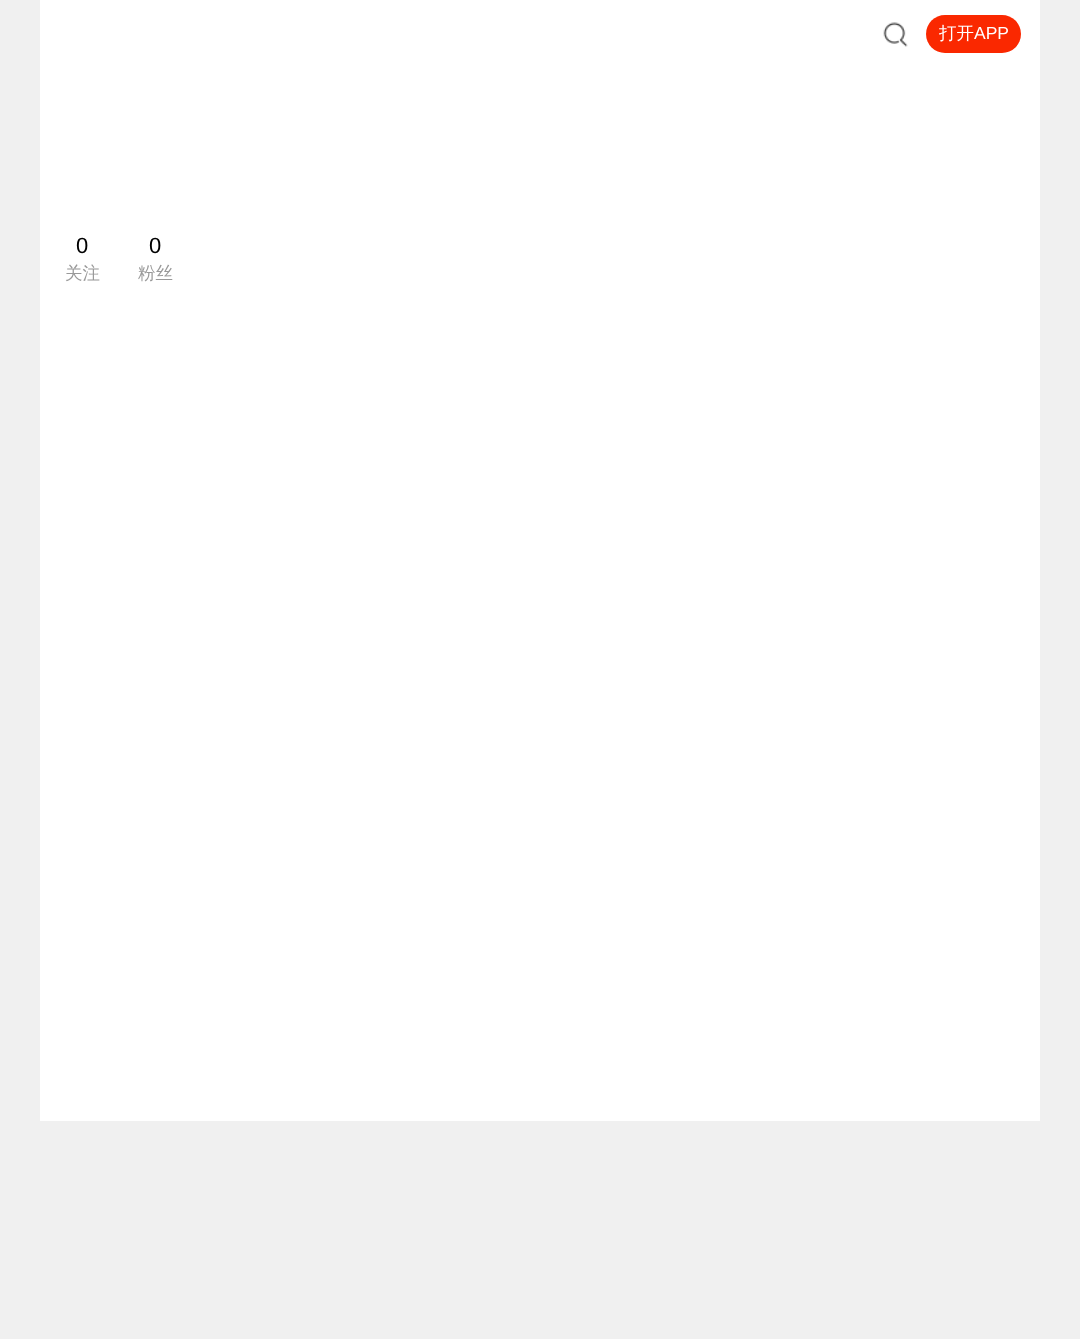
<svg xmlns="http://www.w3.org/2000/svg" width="1080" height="1339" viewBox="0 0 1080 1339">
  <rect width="100%" height="100%" fill="#f0f0f0"/>
  <rect x="40" y="0" width="1000" height="1121" fill="#ffffff"/>
  <image x="883" y="22" width="25" height="25" href="img1.png"/>
  <rect x="926" y="15" width="95" height="38" rx="19" fill="#fa2800"/>
  <text x="939" y="39" font-family="WenQuanYi Zen Hei" font-size="17.5" font-weight="500" fill="#ffffff">打开</text>
  <text x="974" y="39" font-family="Liberation Sans" font-size="17.5" fill="#ffffff">APP</text>
  <text x="76" y="253" font-family="Liberation Sans" font-size="22" fill="#000000">0</text>
  <text x="65" y="279" font-family="WenQuanYi Zen Hei" font-size="17.5" font-weight="500" fill="#999999">关注</text>
  <text x="149" y="253" font-family="Liberation Sans" font-size="22" fill="#000000">0</text>
  <text x="138" y="279" font-family="WenQuanYi Zen Hei" font-size="17.5" font-weight="500" fill="#999999">粉丝</text>
</svg>
